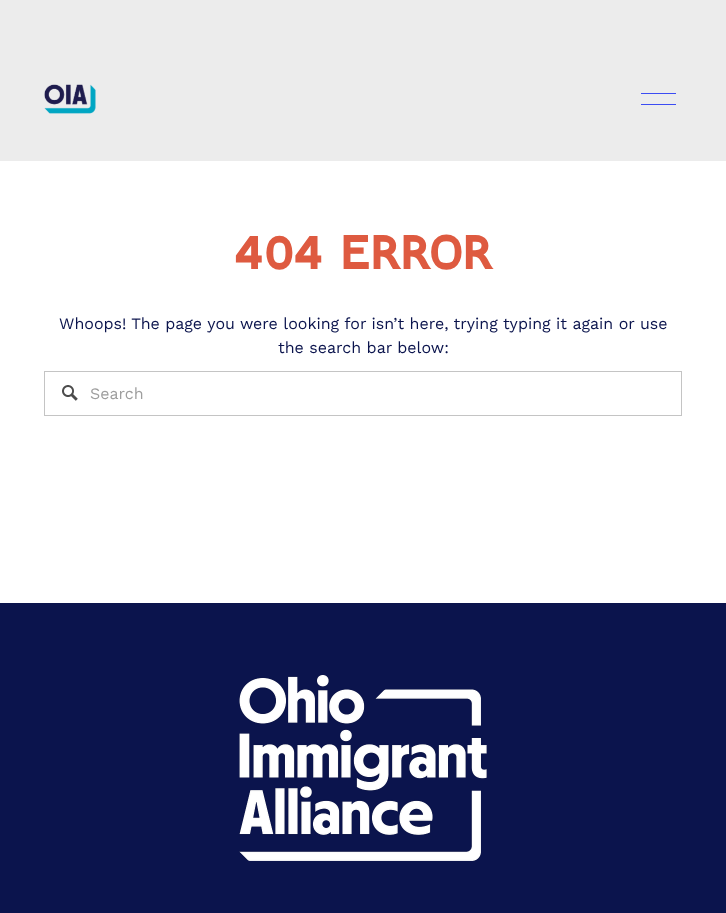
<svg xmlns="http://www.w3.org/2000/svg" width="726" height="913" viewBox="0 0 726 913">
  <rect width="100%" height="100%" fill="#0b144d"/>
  <rect x="0" y="0" width="726" height="161" fill="#ececec"/>
  <image x="44" y="84" width="52" height="30" href="img1.png"/>
  <rect x="641" y="93" width="35" height="1" fill="#3b4cf3"/>
  <rect x="641" y="104" width="35" height="1" fill="#3b4cf3"/>
  <rect x="0" y="161" width="726" height="442" fill="#ffffff"/>
  <text x="233" y="269" font-family="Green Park" font-size="48.5" font-weight="bold" letter-spacing="-1" fill="#de5a40">404 Error</text>
  <text x="59" y="329" font-family="Work Sans" font-size="16" fill="#0b144d">Whoops! The page you were looking for isn’t here, trying typing it again or use</text>
  <text x="278" y="353" font-family="Work Sans" font-size="16" fill="#0b144d">the search bar below:</text>
  <image x="62" y="385" width="16" height="16" href="img2.png"/>
  <rect x="44.5" y="371.5" width="637" height="44" fill="none" stroke="#c4c4c4"/>
  <text x="90" y="399" font-family="Work Sans" font-size="16" fill="#9e9e9e">Search</text>
  <image x="239" y="675" width="248" height="186" href="img3.png"/>
</svg>
